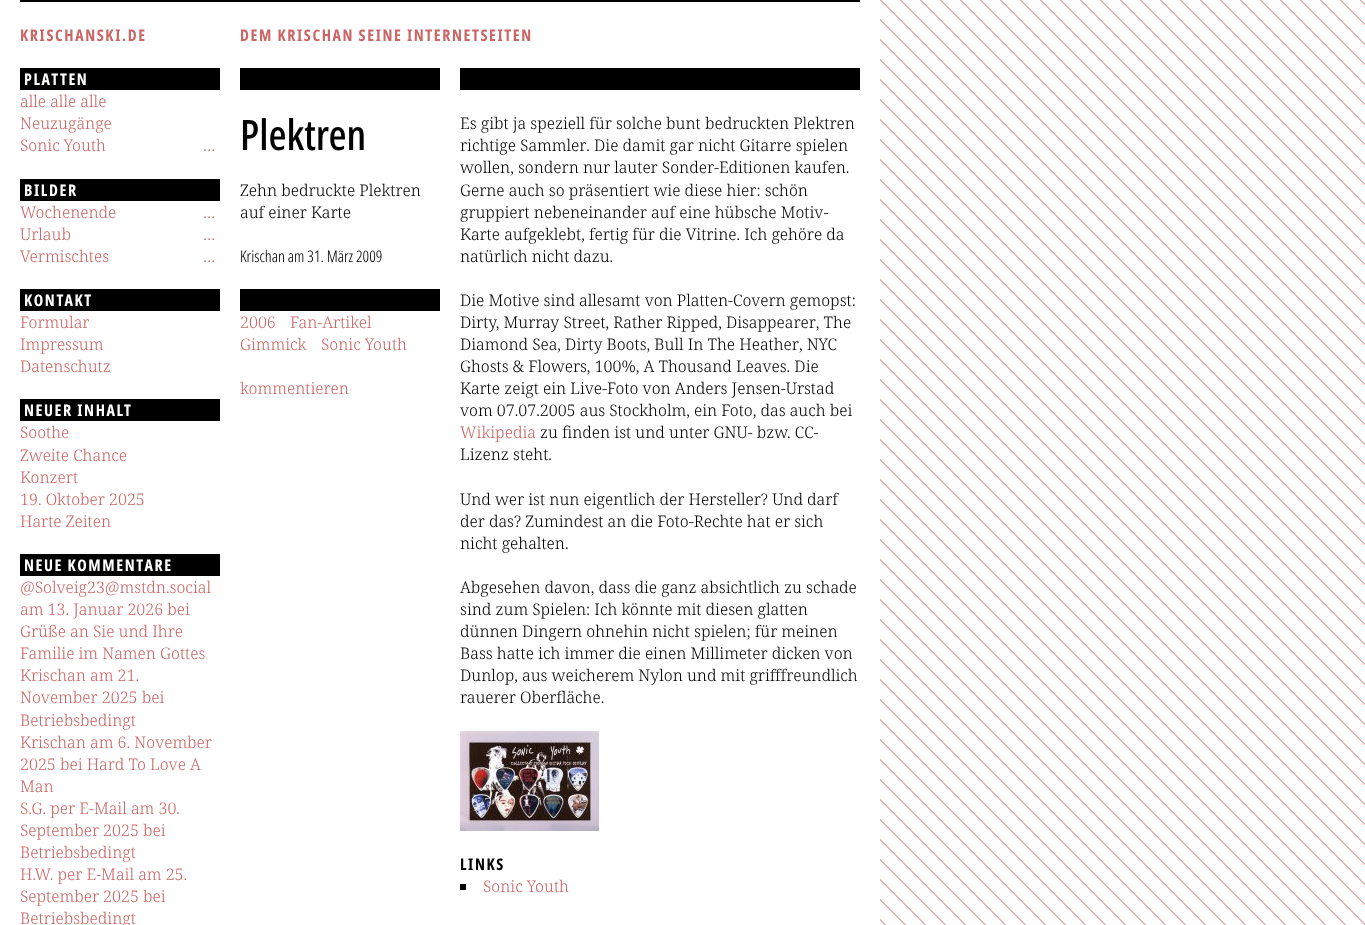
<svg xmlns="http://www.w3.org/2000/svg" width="1365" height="925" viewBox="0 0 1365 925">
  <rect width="100%" height="100%" fill="#cc6666"/>
  <image x="880" y="0" width="485" height="925" href="img1.png"/>
  <rect x="0" y="0" width="880" height="925" fill="#ffffff"/>
  <rect x="20" y="0" width="840" height="2" fill="#000000"/>
  <text x="20" y="41" font-family="Noto Sans" font-size="16" font-weight="bold" letter-spacing="1.6" fill="#cc6666">KRISCHANSKI.DE</text>
  <text x="240" y="41" font-family="Noto Sans" font-size="16" font-weight="bold" letter-spacing="1.6" fill="#cc6666">DEM KRISCHAN SEINE INTERNETSEITEN</text>
  <rect x="20" y="68" width="200" height="22" fill="#000000"/>
  <text x="24" y="85" font-family="Noto Sans" font-size="16" font-weight="bold" letter-spacing="1.6" fill="#ffffff">PLATTEN</text>
  <text x="20" y="107" font-family="Noto Serif" font-size="16" font-weight="300" fill="#cc6666">alle alle alle</text>
  <text x="20" y="129" font-family="Noto Serif" font-size="16" font-weight="300" fill="#cc6666">Neuzugänge</text>
  <text x="20" y="151" font-family="Noto Serif" font-size="16" font-weight="300" fill="#cc6666">Sonic Youth</text>
  <text x="203" y="151" font-family="Noto Serif" font-size="16" font-weight="300" fill="#cc6666">…</text>
  <rect x="20" y="179" width="200" height="22" fill="#000000"/>
  <text x="24" y="196" font-family="Noto Sans" font-size="16" font-weight="bold" letter-spacing="1.6" fill="#ffffff">BILDER</text>
  <text x="20" y="218" font-family="Noto Serif" font-size="16" font-weight="300" fill="#cc6666">Wochenende</text>
  <text x="203" y="218" font-family="Noto Serif" font-size="16" font-weight="300" fill="#cc6666">…</text>
  <text x="20" y="240" font-family="Noto Serif" font-size="16" font-weight="300" fill="#cc6666">Urlaub</text>
  <text x="203" y="240" font-family="Noto Serif" font-size="16" font-weight="300" fill="#cc6666">…</text>
  <text x="20" y="262" font-family="Noto Serif" font-size="16" font-weight="300" fill="#cc6666">Vermischtes</text>
  <text x="203" y="262" font-family="Noto Serif" font-size="16" font-weight="300" fill="#cc6666">…</text>
  <rect x="20" y="289" width="200" height="22" fill="#000000"/>
  <text x="24" y="306" font-family="Noto Sans" font-size="16" font-weight="bold" letter-spacing="1.6" fill="#ffffff">KONTAKT</text>
  <text x="20" y="328" font-family="Noto Serif" font-size="16" font-weight="300" fill="#cc6666">Formular</text>
  <text x="20" y="350" font-family="Noto Serif" font-size="16" font-weight="300" fill="#cc6666">Impressum</text>
  <text x="20" y="372" font-family="Noto Serif" font-size="16" font-weight="300" fill="#cc6666">Datenschutz</text>
  <rect x="20" y="399" width="200" height="22" fill="#000000"/>
  <text x="24" y="416" font-family="Noto Sans" font-size="16" font-weight="bold" letter-spacing="1.6" fill="#ffffff">NEUER INHALT</text>
  <text x="20" y="438" font-family="Noto Serif" font-size="16" font-weight="300" fill="#cc6666">Soothe</text>
  <text x="20" y="461" font-family="Noto Serif" font-size="16" font-weight="300" fill="#cc6666">Zweite Chance</text>
  <text x="20" y="483" font-family="Noto Serif" font-size="16" font-weight="300" fill="#cc6666">Konzert</text>
  <text x="20" y="505" font-family="Noto Serif" font-size="16" font-weight="300" fill="#cc6666">19. Oktober 2025</text>
  <text x="20" y="527" font-family="Noto Serif" font-size="16" font-weight="300" fill="#cc6666">Harte Zeiten</text>
  <rect x="20" y="554" width="200" height="22" fill="#000000"/>
  <text x="24" y="571" font-family="Noto Sans" font-size="16" font-weight="bold" letter-spacing="1.6" fill="#ffffff">NEUE KOMMENTARE</text>
  <text x="20" y="593" font-family="Noto Serif" font-size="16" font-weight="300" fill="#cc6666">@Solveig23@mstdn.social</text>
  <text x="20" y="615" font-family="Noto Serif" font-size="16" font-weight="300" fill="#cc6666">am 13. Januar 2026 bei</text>
  <text x="20" y="637" font-family="Noto Serif" font-size="16" font-weight="300" fill="#cc6666">Grüße an Sie und Ihre</text>
  <text x="20" y="659" font-family="Noto Serif" font-size="16" font-weight="300" fill="#cc6666">Familie im Namen Gottes</text>
  <text x="20" y="681" font-family="Noto Serif" font-size="16" font-weight="300" fill="#cc6666">Krischan am 21.</text>
  <text x="20" y="703" font-family="Noto Serif" font-size="16" font-weight="300" fill="#cc6666">November 2025 bei</text>
  <text x="20" y="726" font-family="Noto Serif" font-size="16" font-weight="300" fill="#cc6666">Betriebsbedingt</text>
  <text x="20" y="748" font-family="Noto Serif" font-size="16" font-weight="300" fill="#cc6666">Krischan am 6. November</text>
  <text x="20" y="770" font-family="Noto Serif" font-size="16" font-weight="300" fill="#cc6666">2025 bei Hard To Love A</text>
  <text x="20" y="792" font-family="Noto Serif" font-size="16" font-weight="300" fill="#cc6666">Man</text>
  <text x="20" y="814" font-family="Noto Serif" font-size="16" font-weight="300" fill="#cc6666">S.G. per E-Mail am 30.</text>
  <text x="20" y="836" font-family="Noto Serif" font-size="16" font-weight="300" fill="#cc6666">September 2025 bei</text>
  <text x="20" y="858" font-family="Noto Serif" font-size="16" font-weight="300" fill="#cc6666">Betriebsbedingt</text>
  <text x="20" y="880" font-family="Noto Serif" font-size="16" font-weight="300" fill="#cc6666">H.W. per E-Mail am 25.</text>
  <text x="20" y="902" font-family="Noto Serif" font-size="16" font-weight="300" fill="#cc6666">September 2025 bei</text>
  <text x="20" y="924" font-family="Noto Serif" font-size="16" font-weight="300" fill="#cc6666">Betriebsbedingt</text>
  <rect x="240" y="68" width="200" height="22" fill="#000000"/>
  <text x="240" y="150" font-family="Noto Sans" font-size="42" font-weight="500" fill="#000000">Plektren</text>
  <text x="240" y="196" font-family="Noto Serif" font-size="16" font-weight="300" fill="#000000">Zehn bedruckte Plektren</text>
  <text x="240" y="218" font-family="Noto Serif" font-size="16" font-weight="300" fill="#000000">auf einer Karte</text>
  <text x="240" y="262" font-family="Noto Sans" font-size="16" font-weight="300" fill="#000000">Krischan am 31. März 2009</text>
  <rect x="460" y="68" width="400" height="22" fill="#000000"/>
  <text x="460" y="129" font-family="Noto Serif" font-size="16" font-weight="300" fill="#000000">Es gibt ja speziell für solche bunt bedruckten Plektren</text>
  <text x="460" y="151" font-family="Noto Serif" font-size="16" font-weight="300" fill="#000000">richtige Sammler. Die damit gar nicht Gitarre spielen</text>
  <text x="460" y="173" font-family="Noto Serif" font-size="16" font-weight="300" fill="#000000">wollen, sondern nur lauter Sonder-Editionen kaufen.</text>
  <text x="460" y="196" font-family="Noto Serif" font-size="16" font-weight="300" fill="#000000">Gerne auch so präsentiert wie diese hier: schön</text>
  <text x="460" y="218" font-family="Noto Serif" font-size="16" font-weight="300" fill="#000000">gruppiert nebeneinander auf eine hübsche Motiv-</text>
  <text x="460" y="240" font-family="Noto Serif" font-size="16" font-weight="300" fill="#000000">Karte aufgeklebt, fertig für die Vitrine. Ich gehöre da</text>
  <text x="460" y="262" font-family="Noto Serif" font-size="16" font-weight="300" fill="#000000">natürlich nicht dazu.</text>
  <text x="460" y="306" font-family="Noto Serif" font-size="16" font-weight="300" fill="#000000">Die Motive sind allesamt von Platten-Covern gemopst:</text>
  <text x="460" y="328" font-family="Noto Serif" font-size="16" font-weight="300" fill="#000000">Dirty, Murray Street, Rather Ripped, Disappearer, The</text>
  <text x="460" y="350" font-family="Noto Serif" font-size="16" font-weight="300" fill="#000000">Diamond Sea, Dirty Boots, Bull In The Heather, NYC</text>
  <text x="460" y="372" font-family="Noto Serif" font-size="16" font-weight="300" fill="#000000">Ghosts &amp; Flowers, 100%, A Thousand Leaves. Die</text>
  <text x="460" y="394" font-family="Noto Serif" font-size="16" font-weight="300" fill="#000000">Karte zeigt ein Live-Foto von Anders Jensen-Urstad</text>
  <text x="460" y="416" font-family="Noto Serif" font-size="16" font-weight="300" fill="#000000">vom 07.07.2005 aus Stockholm, ein Foto, das auch bei</text>
  <text x="460" y="438" font-family="Noto Serif" font-size="16" font-weight="300" fill="#cc6666">Wikipedia</text>
  <text x="540" y="438" font-family="Noto Serif" font-size="16" font-weight="300" fill="#000000">zu finden ist und unter GNU- bzw. CC-</text>
  <text x="460" y="460" font-family="Noto Serif" font-size="16" font-weight="300" fill="#000000">Lizenz steht.</text>
  <text x="460" y="505" font-family="Noto Serif" font-size="16" font-weight="300" fill="#000000">Und wer ist nun eigentlich der Hersteller? Und darf</text>
  <text x="460" y="527" font-family="Noto Serif" font-size="16" font-weight="300" fill="#000000">der das? Zumindest an die Foto-Rechte hat er sich</text>
  <text x="460" y="549" font-family="Noto Serif" font-size="16" font-weight="300" fill="#000000">nicht gehalten.</text>
  <text x="460" y="593" font-family="Noto Serif" font-size="16" font-weight="300" fill="#000000">Abgesehen davon, dass die ganz absichtlich zu schade</text>
  <text x="460" y="615" font-family="Noto Serif" font-size="16" font-weight="300" fill="#000000">sind zum Spielen: Ich könnte mit diesen glatten</text>
  <text x="460" y="637" font-family="Noto Serif" font-size="16" font-weight="300" fill="#000000">dünnen Dingern ohnehin nicht spielen; für meinen</text>
  <text x="460" y="659" font-family="Noto Serif" font-size="16" font-weight="300" fill="#000000">Bass hatte ich immer die einen Millimeter dicken von</text>
  <text x="460" y="681" font-family="Noto Serif" font-size="16" font-weight="300" fill="#000000">Dunlop, aus weicherem Nylon und mit grifffreundlich</text>
  <text x="460" y="703" font-family="Noto Serif" font-size="16" font-weight="300" fill="#000000">rauerer Oberfläche.</text>
  <image x="460" y="731" width="139" height="100" href="img2.png"/>
  <text x="460" y="870" font-family="Noto Sans" font-size="16" font-weight="bold" letter-spacing="1.6" fill="#000000">LINKS</text>
  <rect x="460" y="884" width="6" height="6" fill="#000000"/>
  <text x="483" y="892" font-family="Noto Serif" font-size="16" font-weight="300" fill="#cc6666">Sonic Youth</text>
  <rect x="240" y="289" width="200" height="22" fill="#000000"/>
  <text x="240" y="328" font-family="Noto Serif" font-size="16" font-weight="300" fill="#cc6666">2006</text>
  <text x="290" y="328" font-family="Noto Serif" font-size="16" font-weight="300" fill="#cc6666">Fan-Artikel</text>
  <text x="240" y="350" font-family="Noto Serif" font-size="16" font-weight="300" fill="#cc6666">Gimmick</text>
  <text x="321" y="350" font-family="Noto Serif" font-size="16" font-weight="300" fill="#cc6666">Sonic Youth</text>
  <text x="240" y="394" font-family="Noto Serif" font-size="16" font-weight="300" fill="#cc6666">kommentieren</text>
</svg>
